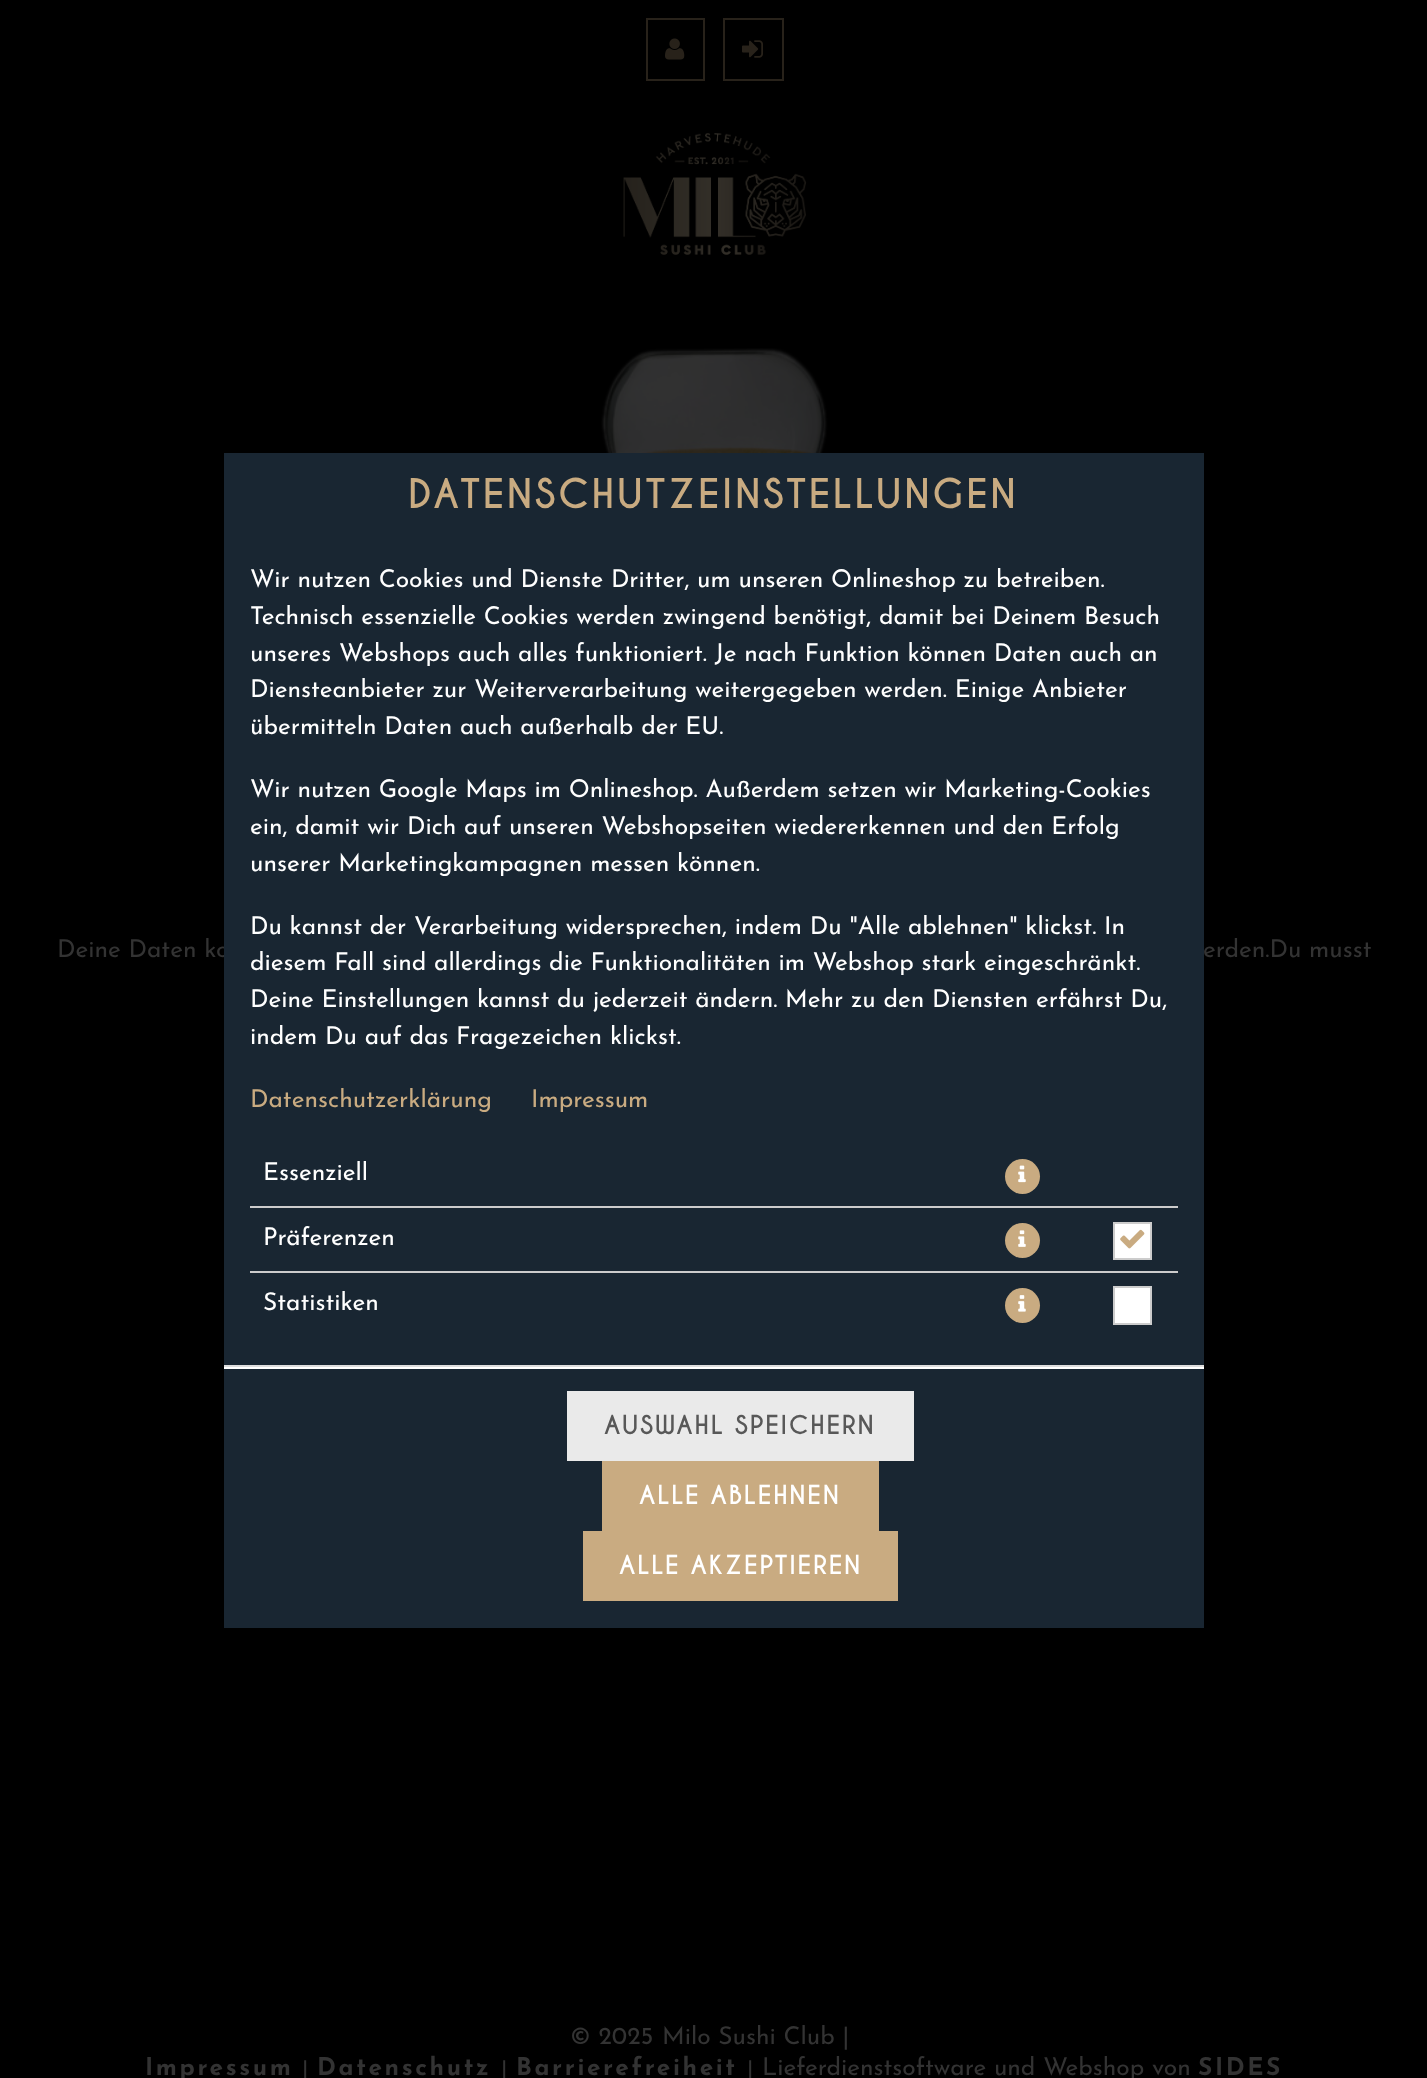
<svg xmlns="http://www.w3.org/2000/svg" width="1427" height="2078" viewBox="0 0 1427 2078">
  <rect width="100%" height="100%" fill="#000000"/>
  <rect x="647" y="19" width="57" height="61" fill="none" stroke="#28221a" stroke-width="2"/>
  <image x="665" y="38" width="20" height="22" href="img1.png"/>
  <rect x="724" y="19" width="59" height="61" fill="none" stroke="#28221a" stroke-width="2"/>
  <image x="742" y="40" width="21" height="18" href="img2.png"/>
  <image x="623" y="133" width="184" height="122" href="img3.png"/>
  <text x="57" y="957" font-family="Josefin Sans" font-size="24.5" fill="#333333">Deine Daten ko</text>
  <text x="1203" y="957" font-family="Josefin Sans" font-size="24.5" fill="#333333">erden.Du musst</text>
  <rect x="224" y="453" width="980" height="1175" fill="#192632"/>
  <text x="408" y="508" font-family="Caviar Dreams" font-size="38.5" font-weight="bold" letter-spacing="2.6" fill="#c9ab81">DATENSCHUTZEINSTELLUNGEN</text>
  <text x="250" y="587" font-family="Josefin Sans" font-size="24.5" fill="#ffffff">Wir nutzen Cookies und Dienste Dritter, um unseren Onlineshop zu betreiben.</text>
  <text x="250" y="624" font-family="Josefin Sans" font-size="24.5" fill="#ffffff">Technisch essenzielle Cookies werden zwingend benötigt, damit bei Deinem Besuch</text>
  <text x="250" y="661" font-family="Josefin Sans" font-size="24.5" fill="#ffffff">unseres Webshops auch alles funktioniert. Je nach Funktion können Daten auch an</text>
  <text x="250" y="697" font-family="Josefin Sans" font-size="24.5" fill="#ffffff">Diensteanbieter zur Weiterverarbeitung weitergegeben werden. Einige Anbieter</text>
  <text x="250" y="734" font-family="Josefin Sans" font-size="24.5" fill="#ffffff">übermitteln Daten auch außerhalb der EU.</text>
  <text x="250" y="797" font-family="Josefin Sans" font-size="24.5" fill="#ffffff">Wir nutzen Google Maps im Onlineshop. Außerdem setzen wir Marketing-Cookies</text>
  <text x="250" y="834" font-family="Josefin Sans" font-size="24.5" fill="#ffffff">ein, damit wir Dich auf unseren Webshopseiten wiedererkennen und den Erfolg</text>
  <text x="250" y="871" font-family="Josefin Sans" font-size="24.5" fill="#ffffff">unserer Marketingkampagnen messen können.</text>
  <text x="250" y="934" font-family="Josefin Sans" font-size="24.5" fill="#ffffff">Du kannst der Verarbeitung widersprechen, indem Du "Alle ablehnen" klickst. In</text>
  <text x="250" y="970" font-family="Josefin Sans" font-size="24.5" fill="#ffffff">diesem Fall sind allerdings die Funktionalitäten im Webshop stark eingeschränkt.</text>
  <text x="250" y="1007" font-family="Josefin Sans" font-size="24.5" fill="#ffffff">Deine Einstellungen kannst du jederzeit ändern. Mehr zu den Diensten erfährst Du,</text>
  <text x="250" y="1044" font-family="Josefin Sans" font-size="24.5" fill="#ffffff">indem Du auf das Fragezeichen klickst.</text>
  <text x="250" y="1107" font-family="Josefin Sans" font-size="24.5" fill="#c9ab81">Datenschutzerklärung</text>
  <text x="531" y="1107" font-family="Josefin Sans" font-size="24.5" fill="#c9ab81">Impressum</text>
  <rect x="250" y="1206" width="928" height="2" fill="#cccccc"/>
  <text x="263" y="1180" font-family="Josefin Sans" font-size="24.5" fill="#ffffff">Essenziell</text>
  <circle cx="1022.5" cy="1176.5" r="17.5" fill="#c9ab81"/>
  <image x="1018" y="1165" width="8" height="18" href="img4.png"/>
  <rect x="250" y="1271" width="928" height="2" fill="#cccccc"/>
  <text x="263" y="1245" font-family="Josefin Sans" font-size="24.5" fill="#ffffff">Präferenzen</text>
  <circle cx="1022.5" cy="1240.5" r="17.5" fill="#c9ab81"/>
  <image x="1018" y="1230" width="8" height="17" href="img5.png"/>
  <rect x="1114" y="1223" width="37" height="36" fill="#ffffff" stroke="#cccccc" stroke-width="2"/>
  <image x="1120" y="1229" width="25" height="20" href="img6.png"/>
  <text x="263" y="1310" font-family="Josefin Sans" font-size="24.5" fill="#ffffff">Statistiken</text>
  <circle cx="1022.5" cy="1305.5" r="17.5" fill="#c9ab81"/>
  <image x="1018" y="1295" width="8" height="17" href="img7.png"/>
  <rect x="1114" y="1287" width="37" height="37" fill="#ffffff" stroke="#cccccc" stroke-width="2"/>
  <rect x="224" y="1367" width="980" height="2" fill="#ffffff"/>
  <rect x="224" y="1365" width="980" height="2" fill="#dddddd"/>
  <rect x="567" y="1391" width="347" height="70" fill="#eaeaea"/>
  <text x="604" y="1434" font-family="Caviar Dreams" font-size="24.5" font-weight="bold" letter-spacing="1.75" fill="#585858">AUSWAHL SPEICHERN</text>
  <rect x="602" y="1461" width="277" height="70" fill="#c9ab81"/>
  <text x="639" y="1504" font-family="Caviar Dreams" font-size="24.5" font-weight="bold" letter-spacing="1.75" fill="#ffffff">ALLE ABLEHNEN</text>
  <rect x="583" y="1531" width="315" height="70" fill="#c9ab81"/>
  <text x="619" y="1574" font-family="Caviar Dreams" font-size="24.5" font-weight="bold" letter-spacing="1.75" fill="#ffffff">ALLE AKZEPTIEREN</text>
  <image x="601" y="348" width="227" height="105" href="img8.png"/>
  <text x="570" y="2044" font-family="Josefin Sans" font-size="24.5" fill="#333333">© 2025</text>
  <text x="662" y="2044" font-family="Josefin Sans" font-size="24.5" fill="#333333">Milo Sushi Club |</text>
  <text x="145" y="2075" font-family="Josefin Sans" font-size="24.5" font-weight="bold" letter-spacing="2.6" fill="#333333">Impressum</text>
  <text x="302" y="2078" font-family="Liberation Sans" font-size="24.5" fill="#333333">|</text>
  <text x="317" y="2075" font-family="Josefin Sans" font-size="24.5" font-weight="bold" letter-spacing="2.6" fill="#333333">Datenschutz</text>
  <text x="501" y="2078" font-family="Liberation Sans" font-size="24.5" fill="#333333">|</text>
  <text x="516" y="2075" font-family="Josefin Sans" font-size="24.5" font-weight="bold" letter-spacing="2.6" fill="#333333">Barrierefreiheit</text>
  <text x="747" y="2078" font-family="Liberation Sans" font-size="24.5" fill="#333333">|</text>
  <text x="762" y="2075" font-family="Josefin Sans" font-size="24.5" fill="#333333">Lieferdienstsoftware und Webshop von</text>
  <text x="1198" y="2075" font-family="Josefin Sans" font-size="24.5" font-weight="bold" letter-spacing="2.6" fill="#333333">SIDES</text>
</svg>
